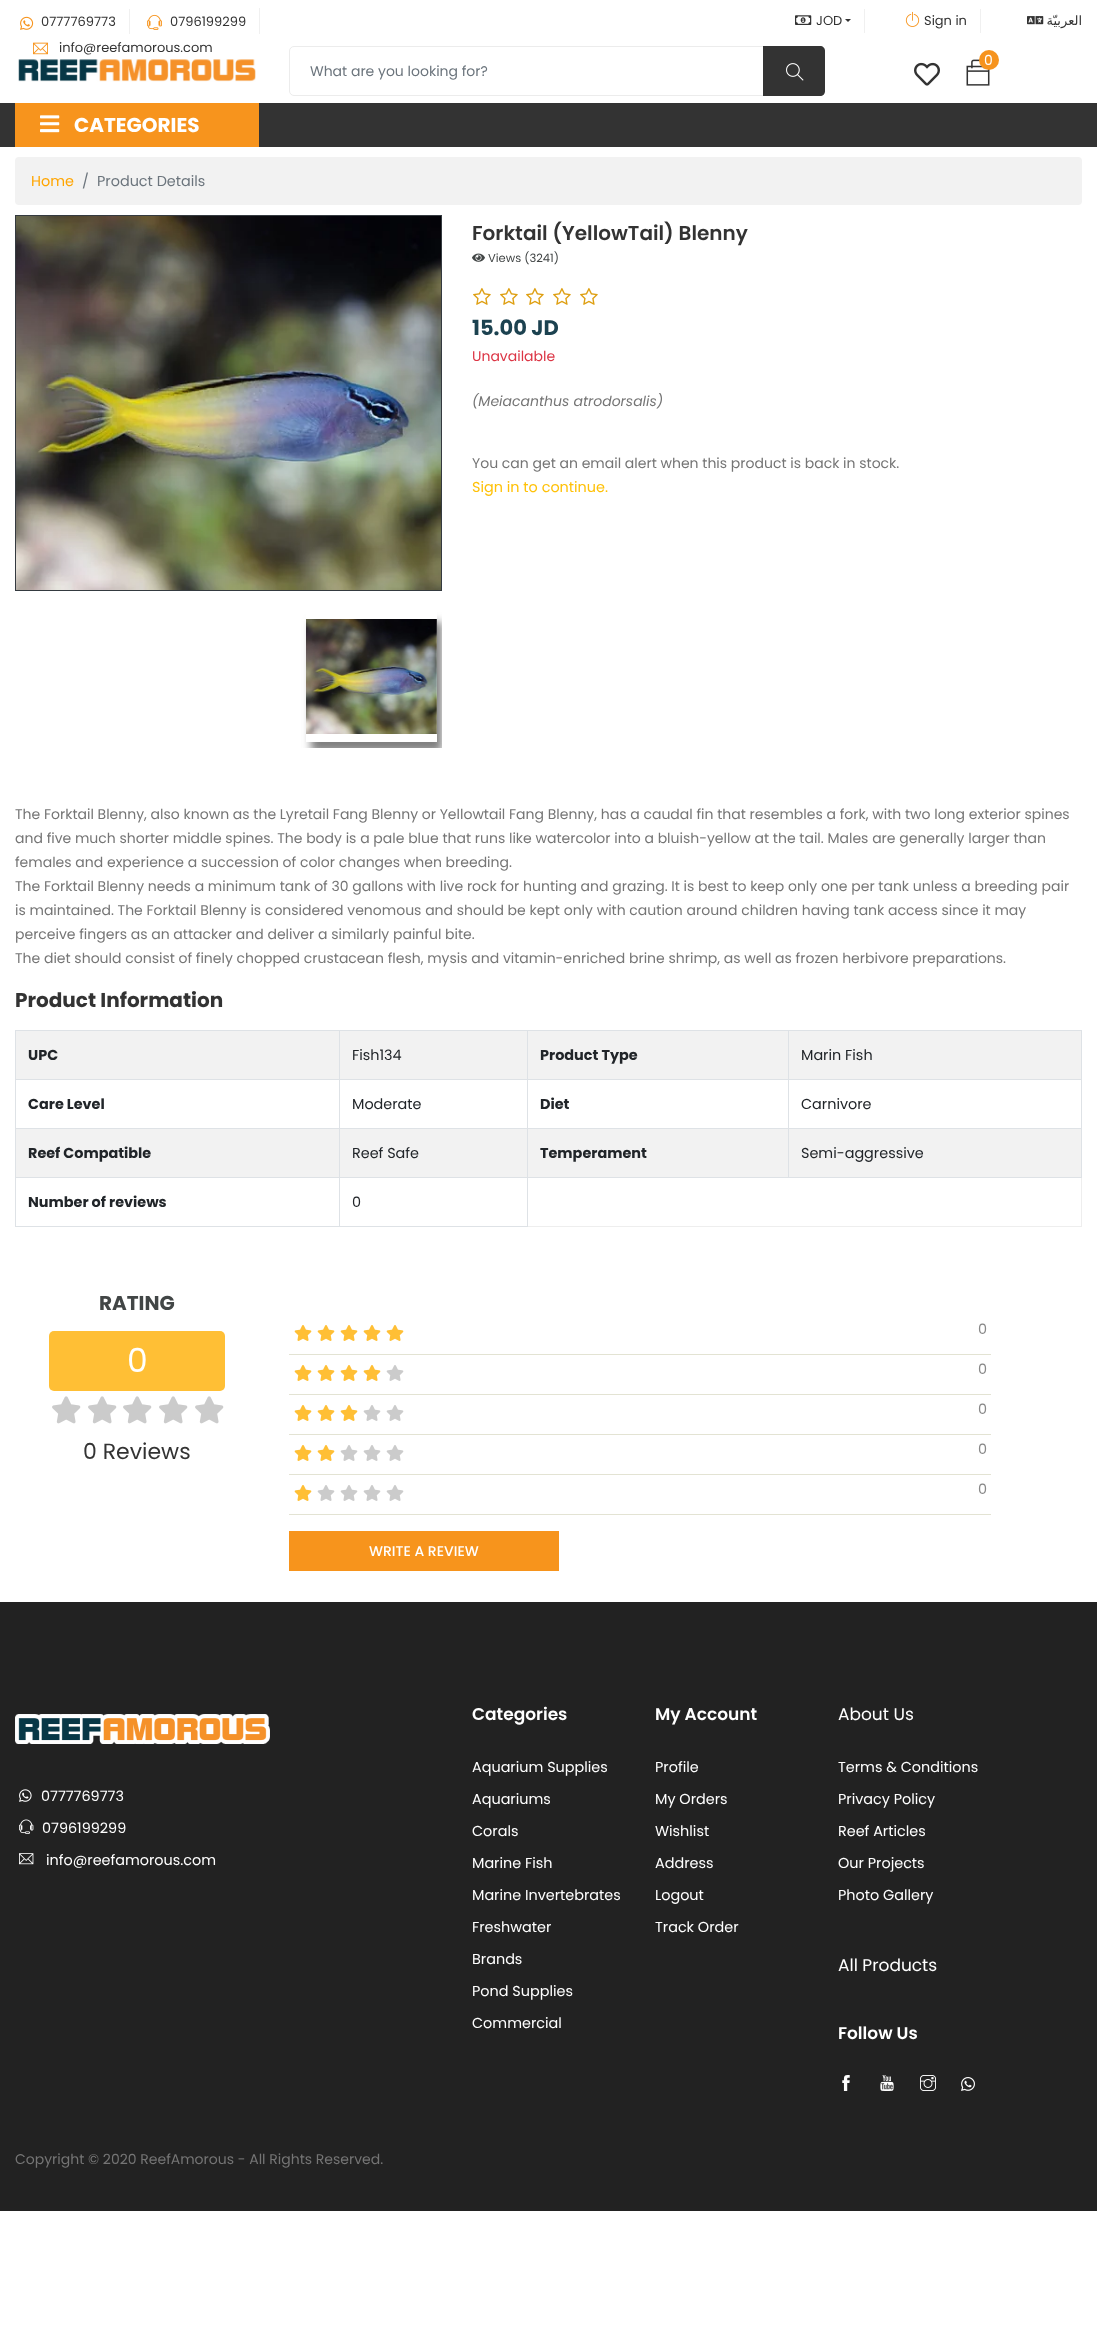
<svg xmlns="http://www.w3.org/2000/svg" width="1097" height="2350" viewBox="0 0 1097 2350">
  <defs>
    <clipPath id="clip1"><rect x="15" y="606" width="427" height="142"/></clipPath>
    <clipPath id="clip2"><path d="M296 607H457V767H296ZM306 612H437V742H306Z" clip-rule="evenodd"/></clipPath>
    <filter id="blur1" x="-50%" y="-200%" width="200%" height="500%"><feGaussianBlur stdDeviation="4.5"/></filter>
  </defs>
  <rect width="100%" height="100%" fill="#ffffff"/>
  <rect x="129" y="9" width="1" height="25" fill="#f0f0f0"/>
  <image x="20" y="16" width="14" height="14" href="img1.png"/>
  <text x="41" y="26" font-family="Poppins" font-size="13" fill="#333333">0777769773</text>
  <rect x="259" y="8" width="1" height="26" fill="#f0f0f0"/>
  <image x="147" y="14" width="15" height="16" href="img2.png"/>
  <text x="170" y="26" font-family="Poppins" font-size="13" fill="#333333">0796199299</text>
  <image x="33" y="42" width="15" height="13" href="img3.png"/>
  <text x="59" y="52" font-family="Poppins" font-size="13" fill="#333333">info@reefamorous.com</text>
  <rect x="864" y="9" width="1" height="24" fill="#f0f0f0"/>
  <image x="795" y="15" width="17" height="10" href="img4.png"/>
  <text x="816" y="25" font-family="Poppins" font-size="13" fill="#333333">JOD</text>
  <path d="M845 19H851L848 22Z" fill="#333333"/>
  <rect x="980" y="9" width="1" height="24" fill="#f0f0f0"/>
  <image x="905" y="11" width="15" height="16" href="img5.png"/>
  <text x="924" y="25" font-family="Poppins" font-size="13" fill="#333333">Sign in</text>
  <image x="1027" y="16" width="17" height="9" href="img6.png"/>
  <text x="1082" y="25" font-family="DejaVu Sans" font-size="13" direction="rtl" fill="#333333">العربيّة</text>
  <image x="18" y="59" width="238" height="23" href="img7.png"/>
  <rect x="289.5" y="46.5" width="534" height="49" rx="4.5" fill="none" stroke="#ececec"/>
  <text x="310" y="76" font-family="Poppins" font-size="14" fill="#6c757d">What are you looking for?</text>
  <path d="M763 46H820C823 46 825 48 825 51V91C825 94 823 96 820 96H763Z" fill="#333333"/>
  <image x="786" y="63" width="18" height="18" href="img8.png"/>
  <image x="966" y="59" width="24" height="27" href="img9.png"/>
  <circle cx="989" cy="60" r="10" fill="#f6931d"/>
  <text x="984" y="65" font-family="Poppins" font-size="14" fill="#ffffff">0</text>
  <image x="914" y="62" width="26" height="24" href="img10.png"/>
  <rect x="0" y="103" width="1097" height="44" fill="#333333"/>
  <rect x="15" y="103" width="244" height="44" fill="#f7941d"/>
  <image x="40" y="115" width="20" height="18" href="img11.png"/>
  <text x="74" y="132" font-family="Poppins" font-size="20" font-weight="bold" fill="#ffffff">CATEGORIES</text>
  <rect x="15" y="157" width="1067" height="48" rx="4" fill="#f2f2f2"/>
  <text x="31" y="186" font-family="Poppins" font-size="14.4" fill="#ffa500">Home</text>
  <text x="82" y="186" font-family="Poppins" font-size="14.4" fill="#6c757d">/</text>
  <text x="97" y="186" font-family="Poppins" font-size="14.4" fill="#6c757d">Product Details</text>
  <rect x="15.5" y="215.5" width="426" height="375" fill="none" stroke="#343a40"/>
  <image x="16" y="216" width="425" height="374" href="img12.png"/>
  <g clip-path="url(#clip1)">
    <g clip-path="url(#clip2)">
      <rect x="311" y="622" width="131" height="130" fill="#808080" filter="url(#blur1)"/>
    </g>
  </g>
  <image x="306" y="619" width="131" height="115" href="img13.png"/>
  <text x="472" y="240" font-family="Poppins" font-size="20" font-weight="600" fill="#333333">Forktail (YellowTail) Blenny</text>
  <image x="472" y="253" width="13" height="9" href="img14.png"/>
  <text x="488" y="262" font-family="Poppins" font-size="11.5" fill="#424646">Views (3241)</text>
  <image x="473" y="287" width="18" height="18" href="img15.png"/>
  <image x="500" y="287" width="18" height="18" href="img15.png"/>
  <image x="526" y="287" width="18" height="18" href="img15.png"/>
  <image x="553" y="287" width="18" height="18" href="img15.png"/>
  <image x="580" y="287" width="18" height="18" href="img15.png"/>
  <text x="472" y="335" font-family="Poppins" font-size="21" font-weight="bold" fill="#1c4250">15.00 JD</text>
  <text x="472" y="361" font-family="Poppins" font-size="14" fill="#dc3545">Unavailable</text>
  <text x="472" y="406" font-family="Poppins" font-size="14" font-style="italic" fill="#757575">(Meiacanthus atrodorsalis)</text>
  <text x="472" y="468" font-family="Poppins" font-size="14" fill="#757575">You can get an email alert when this product is back in stock.</text>
  <text x="472" y="492" font-family="Poppins" font-size="14.4" fill="#ffc107">Sign in to continue.</text>
  <text x="15" y="819" font-family="Poppins" font-size="14" fill="#757575">The Forktail Blenny, also known as the Lyretail Fang Blenny or Yellowtail Fang Blenny, has a caudal fin that resembles a fork, with two long exterior spines</text>
  <text x="15" y="843" font-family="Poppins" font-size="14" fill="#757575">and five much shorter middle spines. The body is a pale blue that runs like watercolor into a bluish-yellow at the tail. Males are generally larger than</text>
  <text x="15" y="867" font-family="Poppins" font-size="14" fill="#757575">females and experience a succession of color changes when breeding.</text>
  <text x="15" y="891" font-family="Poppins" font-size="14" fill="#757575">The Forktail Blenny needs a minimum tank of 30 gallons with live rock for hunting and grazing. It is best to keep only one per tank unless a breeding pair</text>
  <text x="15" y="915" font-family="Poppins" font-size="14" fill="#757575">is maintained. The Forktail Blenny is considered venomous and should be kept only with caution around children having tank access since it may</text>
  <text x="15" y="939" font-family="Poppins" font-size="14" fill="#757575">perceive fingers as an attacker and deliver a similarly painful bite.</text>
  <text x="15" y="963" font-family="Poppins" font-size="14" fill="#757575">The diet should consist of finely chopped crustacean flesh, mysis and vitamin-enriched brine shrimp, as well as frozen herbivore preparations.</text>
  <text x="15" y="1007" font-family="Poppins" font-size="20" font-weight="bold" fill="#333333">Product Information</text>
  <rect x="1081" y="1178" width="1" height="49" fill="#eeeeee"/>
  <rect x="528" y="1226" width="554" height="1" fill="#eeeeee"/>
  <rect x="16" y="1031" width="1065" height="48" fill="#f2f2f2"/>
  <rect x="788" y="1030" width="294" height="1" fill="#dee2e6"/>
  <rect x="788" y="1079" width="294" height="1" fill="#dee2e6"/>
  <rect x="788" y="1128" width="294" height="1" fill="#dee2e6"/>
  <rect x="16" y="1129" width="1065" height="48" fill="#f2f2f2"/>
  <rect x="1081" y="1128" width="1" height="50" fill="#dee2e6"/>
  <rect x="788" y="1177" width="294" height="1" fill="#dee2e6"/>
  <rect x="788" y="1128" width="1" height="50" fill="#dee2e6"/>
  <rect x="527" y="1128" width="262" height="1" fill="#dee2e6"/>
  <rect x="788" y="1079" width="1" height="50" fill="#dee2e6"/>
  <rect x="527" y="1079" width="262" height="1" fill="#dee2e6"/>
  <rect x="788" y="1030" width="1" height="50" fill="#dee2e6"/>
  <rect x="527" y="1030" width="262" height="1" fill="#dee2e6"/>
  <rect x="339" y="1177" width="189" height="1" fill="#dee2e6"/>
  <rect x="527" y="1177" width="1" height="50" fill="#dee2e6"/>
  <rect x="527" y="1177" width="262" height="1" fill="#dee2e6"/>
  <rect x="527" y="1128" width="1" height="50" fill="#dee2e6"/>
  <rect x="339" y="1128" width="189" height="1" fill="#dee2e6"/>
  <rect x="527" y="1079" width="1" height="50" fill="#dee2e6"/>
  <rect x="339" y="1079" width="189" height="1" fill="#dee2e6"/>
  <rect x="527" y="1030" width="1" height="50" fill="#dee2e6"/>
  <rect x="339" y="1030" width="189" height="1" fill="#dee2e6"/>
  <rect x="339" y="1226" width="189" height="1" fill="#dee2e6"/>
  <rect x="339" y="1177" width="1" height="50" fill="#dee2e6"/>
  <rect x="15" y="1177" width="325" height="1" fill="#dee2e6"/>
  <rect x="339" y="1128" width="1" height="50" fill="#dee2e6"/>
  <rect x="15" y="1128" width="325" height="1" fill="#dee2e6"/>
  <rect x="339" y="1079" width="1" height="50" fill="#dee2e6"/>
  <rect x="15" y="1079" width="325" height="1" fill="#dee2e6"/>
  <rect x="339" y="1030" width="1" height="50" fill="#dee2e6"/>
  <rect x="15" y="1030" width="325" height="1" fill="#dee2e6"/>
  <rect x="15" y="1226" width="325" height="1" fill="#dee2e6"/>
  <rect x="15" y="1177" width="1" height="50" fill="#dee2e6"/>
  <rect x="15" y="1128" width="1" height="50" fill="#dee2e6"/>
  <rect x="15" y="1079" width="1" height="50" fill="#dee2e6"/>
  <rect x="15" y="1030" width="1" height="50" fill="#dee2e6"/>
  <text x="28" y="1060" font-family="Poppins" font-size="14.4" font-weight="bold" fill="#212529">UPC</text>
  <text x="352" y="1060" font-family="Poppins" font-size="14.4" fill="#212529">Fish134</text>
  <text x="540" y="1060" font-family="Poppins" font-size="14.4" font-weight="bold" fill="#212529">Product Type</text>
  <rect x="1081" y="1079" width="1" height="50" fill="#dee2e6"/>
  <rect x="1081" y="1030" width="1" height="50" fill="#dee2e6"/>
  <text x="801" y="1060" font-family="Poppins" font-size="14.4" fill="#212529">Marin Fish</text>
  <text x="28" y="1109" font-family="Poppins" font-size="14.4" font-weight="bold" fill="#212529">Care Level</text>
  <text x="352" y="1109" font-family="Poppins" font-size="14.4" fill="#212529">Moderate</text>
  <text x="540" y="1109" font-family="Poppins" font-size="14.4" font-weight="bold" fill="#212529">Diet</text>
  <text x="801" y="1109" font-family="Poppins" font-size="14.4" fill="#212529">Carnivore</text>
  <text x="28" y="1158" font-family="Poppins" font-size="14.4" font-weight="bold" fill="#212529">Reef Compatible</text>
  <text x="352" y="1158" font-family="Poppins" font-size="14.4" fill="#212529">Reef Safe</text>
  <text x="540" y="1158" font-family="Poppins" font-size="14.4" font-weight="bold" fill="#212529">Temperament</text>
  <text x="801" y="1158" font-family="Poppins" font-size="14.4" fill="#212529">Semi-aggressive</text>
  <text x="28" y="1207" font-family="Poppins" font-size="14.4" font-weight="bold" fill="#212529">Number of reviews</text>
  <text x="352" y="1207" font-family="Poppins" font-size="14.4" fill="#212529">0</text>
  <text x="99" y="1310" font-family="Poppins" font-size="20" font-weight="bold" fill="#424646">RATING</text>
  <rect x="49" y="1331" width="176" height="60" rx="5" fill="#ffbf35"/>
  <text x="127" y="1372" font-family="Poppins" font-size="33" fill="#ffffff">0</text>
  <image x="52" y="1396" width="29" height="28" href="img16.png"/>
  <image x="88" y="1396" width="29" height="28" href="img16.png"/>
  <image x="123" y="1396" width="29" height="28" href="img16.png"/>
  <image x="159" y="1396" width="29" height="28" href="img16.png"/>
  <image x="195" y="1396" width="29" height="28" href="img16.png"/>
  <text x="83" y="1459" font-family="Poppins" font-size="22" fill="#333333">0 Reviews</text>
  <image x="294" y="1325" width="18" height="16" href="img17.png"/>
  <image x="317" y="1325" width="18" height="16" href="img17.png"/>
  <image x="340" y="1325" width="18" height="16" href="img17.png"/>
  <image x="363" y="1325" width="18" height="16" href="img17.png"/>
  <image x="386" y="1325" width="18" height="16" href="img17.png"/>
  <rect x="289" y="1354" width="702" height="1" fill="#e3e3d3"/>
  <text x="978" y="1334" font-family="Poppins" font-size="14.4" fill="#888888">0</text>
  <image x="294" y="1365" width="18" height="16" href="img17.png"/>
  <image x="317" y="1365" width="18" height="16" href="img17.png"/>
  <image x="340" y="1365" width="18" height="16" href="img17.png"/>
  <image x="363" y="1365" width="18" height="16" href="img17.png"/>
  <image x="386" y="1365" width="18" height="16" href="img18.png"/>
  <rect x="289" y="1394" width="702" height="1" fill="#e3e3d3"/>
  <text x="978" y="1374" font-family="Poppins" font-size="14.4" fill="#888888">0</text>
  <image x="294" y="1405" width="18" height="16" href="img17.png"/>
  <image x="317" y="1405" width="18" height="16" href="img17.png"/>
  <image x="340" y="1405" width="18" height="16" href="img17.png"/>
  <image x="363" y="1405" width="18" height="16" href="img18.png"/>
  <image x="386" y="1405" width="18" height="16" href="img18.png"/>
  <rect x="289" y="1434" width="702" height="1" fill="#e3e3d3"/>
  <text x="978" y="1414" font-family="Poppins" font-size="14.4" fill="#888888">0</text>
  <image x="294" y="1445" width="18" height="16" href="img17.png"/>
  <image x="317" y="1445" width="18" height="16" href="img17.png"/>
  <image x="340" y="1445" width="18" height="16" href="img18.png"/>
  <image x="363" y="1445" width="18" height="16" href="img18.png"/>
  <image x="386" y="1445" width="18" height="16" href="img18.png"/>
  <rect x="289" y="1474" width="702" height="1" fill="#e3e3d3"/>
  <text x="978" y="1454" font-family="Poppins" font-size="14.4" fill="#888888">0</text>
  <image x="294" y="1485" width="18" height="16" href="img17.png"/>
  <image x="317" y="1485" width="18" height="16" href="img18.png"/>
  <image x="340" y="1485" width="18" height="16" href="img18.png"/>
  <image x="363" y="1485" width="18" height="16" href="img18.png"/>
  <image x="386" y="1485" width="18" height="16" href="img18.png"/>
  <rect x="289" y="1514" width="702" height="1" fill="#e3e3d3"/>
  <text x="978" y="1494" font-family="Poppins" font-size="14.4" fill="#888888">0</text>
  <rect x="289" y="1531" width="270" height="40" fill="#f7941c"/>
  <text x="369" y="1556" font-family="Poppins" font-size="14" font-weight="500" fill="#ffffff">WRITE A REVIEW</text>
  <rect x="0" y="1602" width="1097" height="609" fill="#222222"/>
  <image x="15" y="1714" width="255" height="30" href="img19.png"/>
  <image x="19" y="1789" width="13" height="13" href="img20.png"/>
  <text x="41" y="1801" font-family="Poppins" font-size="14.4" fill="#ffffff">0777769773</text>
  <image x="19" y="1819" width="15" height="15" href="img21.png"/>
  <text x="42" y="1833" font-family="Poppins" font-size="14.4" fill="#ffffff">0796199299</text>
  <image x="19" y="1853" width="15" height="12" href="img22.png"/>
  <text x="46" y="1865" font-family="Poppins" font-size="14.4" fill="#ffffff">info@reefamorous.com</text>
  <text x="472" y="1720" font-family="Poppins" font-size="17" font-weight="600" fill="#ffffff">Categories</text>
  <text x="472" y="1772" font-family="Poppins" font-size="14.4" fill="#ffffff">Aquarium Supplies</text>
  <text x="472" y="1804" font-family="Poppins" font-size="14.4" fill="#ffffff">Aquariums</text>
  <text x="472" y="1836" font-family="Poppins" font-size="14.4" fill="#ffffff">Corals</text>
  <text x="472" y="1868" font-family="Poppins" font-size="14.4" fill="#ffffff">Marine Fish</text>
  <text x="472" y="1900" font-family="Poppins" font-size="14.4" fill="#ffffff">Marine Invertebrates</text>
  <text x="472" y="1932" font-family="Poppins" font-size="14.4" fill="#ffffff">Freshwater</text>
  <text x="472" y="1964" font-family="Poppins" font-size="14.4" fill="#ffffff">Brands</text>
  <text x="472" y="1996" font-family="Poppins" font-size="14.4" fill="#ffffff">Pond Supplies</text>
  <text x="472" y="2028" font-family="Poppins" font-size="14.4" fill="#ffffff">Commercial</text>
  <text x="655" y="1720" font-family="Poppins" font-size="17" font-weight="600" fill="#ffffff">My Account</text>
  <text x="655" y="1772" font-family="Poppins" font-size="14.4" fill="#ffffff">Profile</text>
  <text x="655" y="1804" font-family="Poppins" font-size="14.4" fill="#ffffff">My Orders</text>
  <text x="655" y="1836" font-family="Poppins" font-size="14.4" fill="#ffffff">Wishlist</text>
  <text x="655" y="1868" font-family="Poppins" font-size="14.4" fill="#ffffff">Address</text>
  <text x="655" y="1900" font-family="Poppins" font-size="14.4" fill="#ffffff">Logout</text>
  <text x="655" y="1932" font-family="Poppins" font-size="14.4" fill="#ffffff">Track Order</text>
  <text x="838" y="1720" font-family="Poppins" font-size="17" fill="#ffffff">About Us</text>
  <text x="838" y="1772" font-family="Poppins" font-size="14.4" fill="#ffffff">Terms &amp; Conditions</text>
  <text x="838" y="1804" font-family="Poppins" font-size="14.4" fill="#ffffff">Privacy Policy</text>
  <text x="838" y="1836" font-family="Poppins" font-size="14.4" fill="#ffffff">Reef Articles</text>
  <text x="838" y="1868" font-family="Poppins" font-size="14.4" fill="#ffffff">Our Projects</text>
  <text x="838" y="1900" font-family="Poppins" font-size="14.4" fill="#ffffff">Photo Gallery</text>
  <text x="838" y="1971" font-family="Poppins" font-size="17" fill="#ffffff">All Products</text>
  <text x="838" y="2039" font-family="Poppins" font-size="17" font-weight="600" fill="#ffffff">Follow Us</text>
  <image x="842" y="2075" width="8" height="16" href="img23.png"/>
  <image x="880" y="2075" width="14" height="16" href="img24.png"/>
  <image x="920" y="2075" width="16" height="16" href="img25.png"/>
  <image x="961" y="2077" width="14" height="14" href="img26.png"/>
  <text x="15" y="2164" font-family="Poppins" font-size="14" fill="#757575">Copyright © 2020 ReefAmorous - All Rights Reserved.</text>
</svg>
